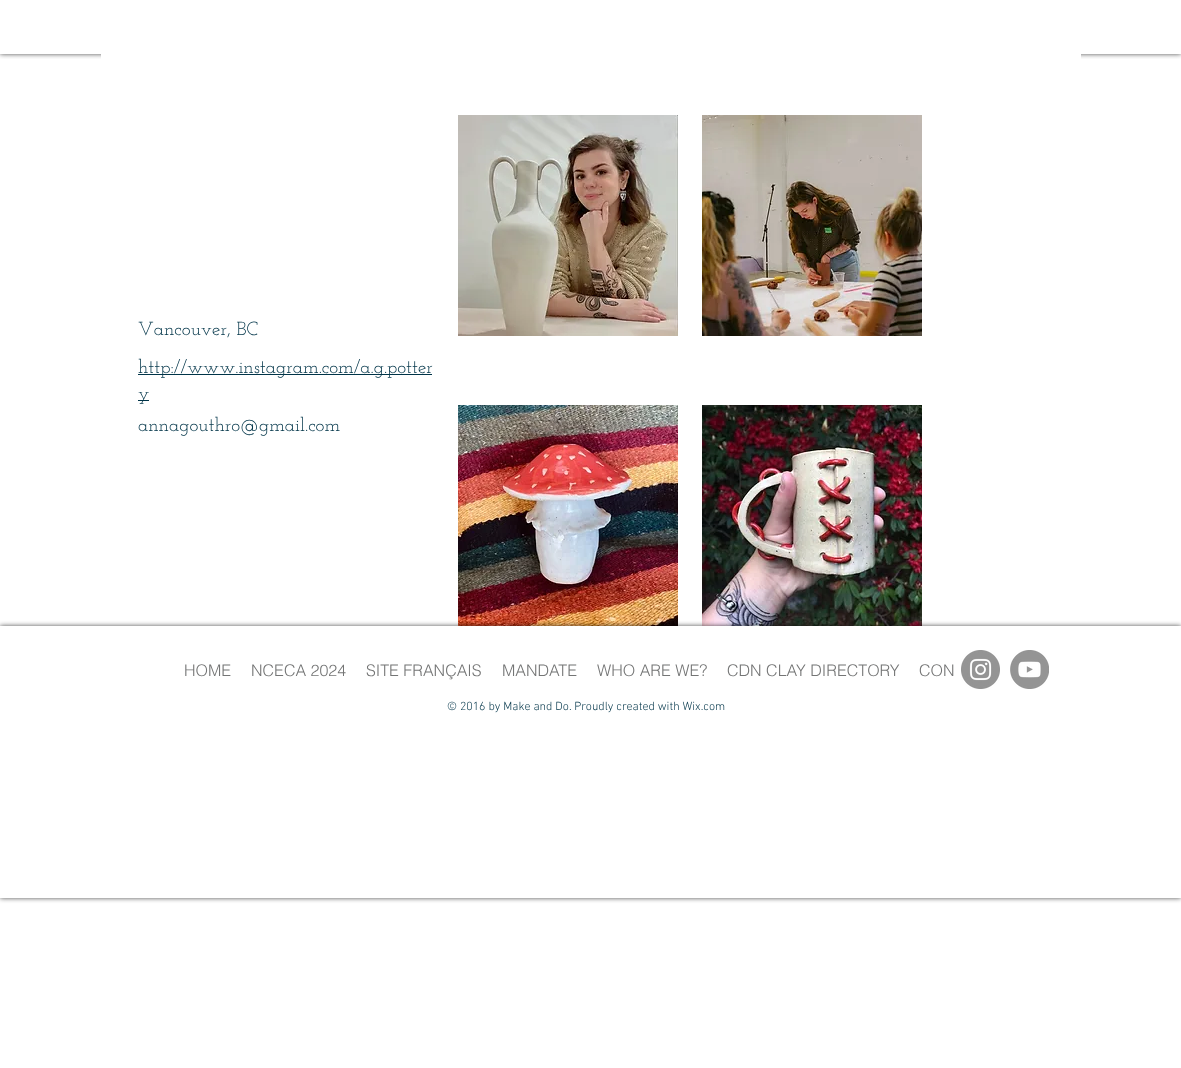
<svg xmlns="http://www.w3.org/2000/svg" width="1181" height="1068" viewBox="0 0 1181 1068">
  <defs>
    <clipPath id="clip1"><rect x="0" y="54" width="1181" height="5"/></clipPath>
    <filter id="blur1" x="-50%" y="-200%" width="200%" height="500%"><feGaussianBlur stdDeviation="2.5"/></filter>
    <clipPath id="clip2"><path d="M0 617H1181V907H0ZM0 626H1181V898H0Z" clip-rule="evenodd"/></clipPath>
  </defs>
  <rect width="100%" height="100%" fill="#ffffff"/>
  <g clip-path="url(#clip1)">
    <rect x="0" y="0" width="1181" height="54" fill="#000000" fill-opacity="0.7" filter="url(#blur1)"/>
  </g>
  <rect x="101" y="54" width="980" height="5" fill="#ffffff"/>
  <text x="138" y="335" font-family="Josefin Slab" font-size="19" fill="#003448">Vancouver, BC</text>
  <image x="458" y="115" width="220" height="221" href="img1.png"/>
  <image x="702" y="115" width="220" height="221" href="img2.png"/>
  <rect x="138" y="374" width="294" height="1" fill="#003448"/>
  <text x="138" y="373" font-family="Josefin Slab" font-size="19" fill="#003448">http://www.instagram.com/a.g.potter</text>
  <rect x="138" y="400" width="11" height="1" fill="#003448"/>
  <text x="138" y="399" font-family="Josefin Slab" font-size="19" fill="#003448">y</text>
  <text x="138" y="431" font-family="Josefin Slab" font-size="19" fill="#003448">annagouthro@gmail.com</text>
  <image x="458" y="405" width="220" height="221" href="img3.png"/>
  <image x="702" y="405" width="220" height="221" href="img4.png"/>
  <g clip-path="url(#clip2)">
    <rect x="0" y="626" width="1181" height="272" fill="#000000" fill-opacity="0.7" filter="url(#blur1)"/>
  </g>
  <text x="184" y="676" font-family="helvetica" font-size="16" font-weight="300" fill="#747575">HOME</text>
  <text x="251" y="676" font-family="helvetica" font-size="16" font-weight="300" fill="#747575">NCECA 2024</text>
  <text x="366" y="676" font-family="helvetica" font-size="16" font-weight="300" fill="#747575">SITE FRANÇAIS</text>
  <text x="502" y="676" font-family="helvetica" font-size="16" font-weight="300" fill="#747575">MANDATE</text>
  <text x="597" y="676" font-family="helvetica" font-size="16" font-weight="300" fill="#747575">WHO ARE WE?</text>
  <text x="727" y="676" font-family="helvetica" font-size="16" font-weight="300" fill="#747575">CDN CLAY DIRECTORY</text>
  <text x="919" y="676" font-family="helvetica" font-size="16" font-weight="300" fill="#747575">CON</text>
  <image x="961" y="650" width="39" height="39" href="img5.png"/>
  <image x="1010" y="650" width="39" height="39" href="img6.png"/>
  <text x="447" y="710" font-family="'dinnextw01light'" font-size="12" font-weight="300" fill="#003448">© 2016 by Make and Do. Proudly created with Wix.com</text>
</svg>
